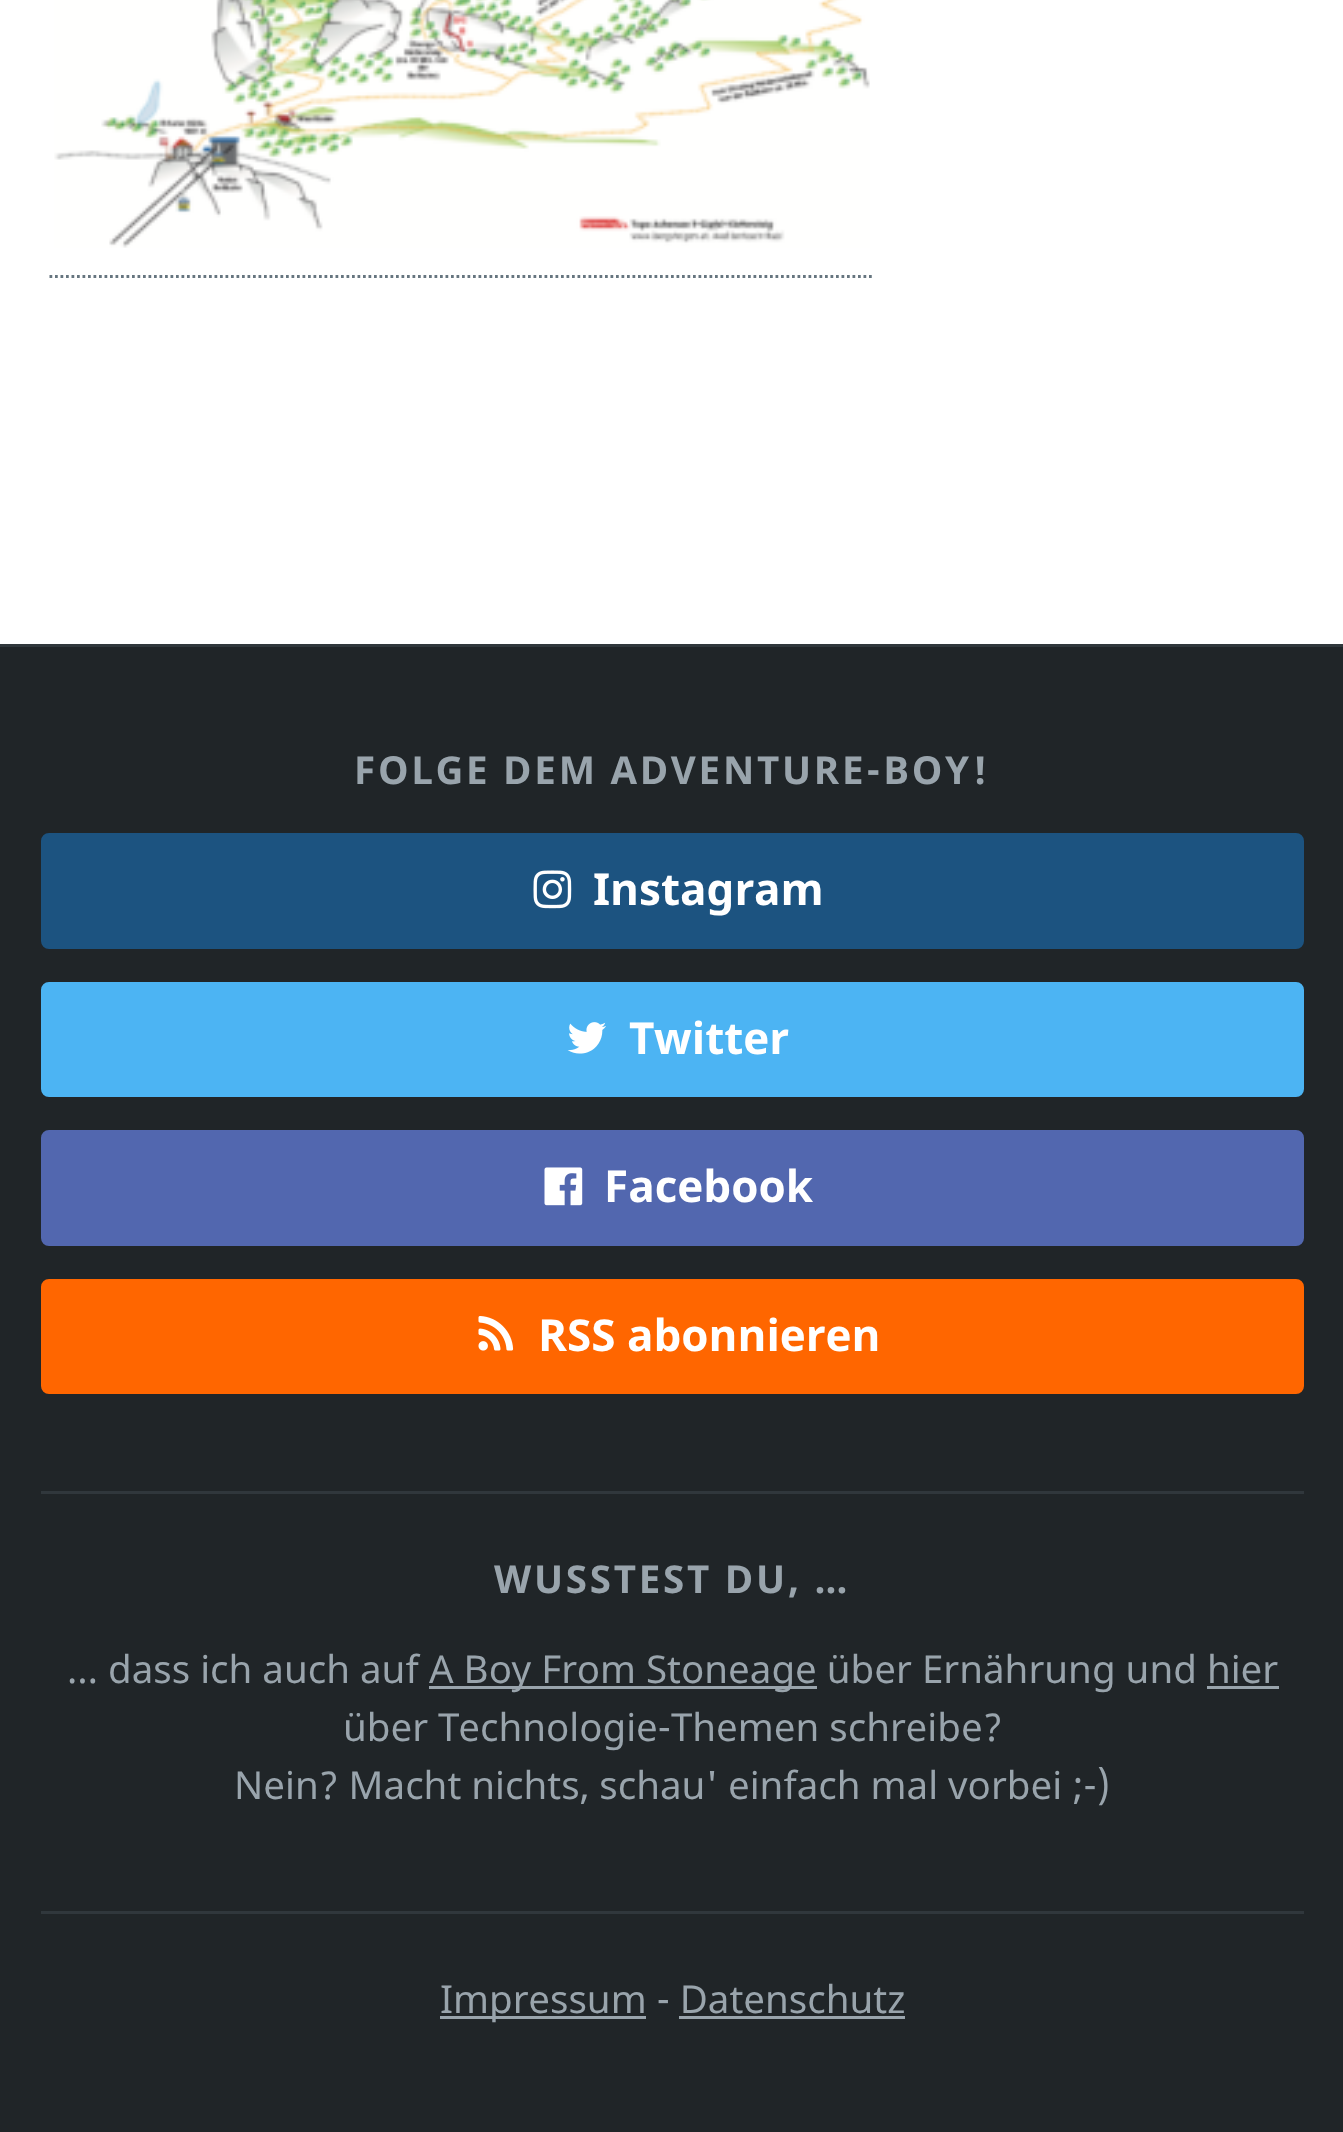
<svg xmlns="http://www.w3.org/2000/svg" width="1343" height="2132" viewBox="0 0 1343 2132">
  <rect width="100%" height="100%" fill="#ffffff"/>
  <image x="54" y="0" width="816" height="248" href="img1.png"/>
  <path d="M49.5 276.5H874.5" fill="none" stroke="#66757f" stroke-width="2.8" stroke-dasharray="2.75 2.75"/>
  <rect x="0" y="647" width="1343" height="1485" fill="#202528"/>
  <rect x="0" y="644" width="1343" height="3" fill="#30373c"/>
  <text x="354" y="784" font-family="Noto Sans" font-size="38.5" font-weight="bold" letter-spacing="2.75" fill="#99a4ac">FOLGE DEM ADVENTURE-BOY!</text>
  <rect x="45" y="837" width="1255" height="108" rx="4" fill="#1c5380" stroke="#1c5380" stroke-width="8"/>
  <image x="533" y="870" width="39" height="39" href="img2.png"/>
  <text x="593" y="905" font-family="Noto Sans" font-size="44" font-weight="bold" fill="#ffffff">Instagram</text>
  <rect x="45" y="986" width="1255" height="107" rx="4" fill="#4cb4f3" stroke="#4cb4f3" stroke-width="8"/>
  <image x="567" y="1022" width="39" height="32" href="img3.png"/>
  <text x="629" y="1054" font-family="Noto Sans" font-size="44" font-weight="bold" fill="#ffffff">Twitter</text>
  <rect x="45" y="1134" width="1255" height="108" rx="4" fill="#5267af" stroke="#5267af" stroke-width="8"/>
  <image x="544" y="1167" width="39" height="39" href="img4.png"/>
  <text x="604" y="1202" font-family="Noto Sans" font-size="44" font-weight="bold" fill="#ffffff">Facebook</text>
  <rect x="45" y="1283" width="1255" height="107" rx="4" fill="#ff6600" stroke="#ff6600" stroke-width="8"/>
  <image x="478" y="1316" width="36" height="35" href="img5.png"/>
  <text x="538" y="1351" font-family="Noto Sans" font-size="44" font-weight="bold" fill="#ffffff">RSS abonnieren</text>
  <rect x="41" y="1491" width="1263" height="3" fill="#30373c"/>
  <text x="494" y="1593" font-family="Noto Sans" font-size="38.5" font-weight="bold" letter-spacing="2.75" fill="#99a4ac">WUSSTEST DU, …</text>
  <text x="67" y="1683" font-family="Noto Sans" font-size="38.5" fill="#99a4ac">… dass ich auch auf</text>
  <rect x="429" y="1686" width="388" height="3" fill="#99a4ac"/>
  <text x="429" y="1683" font-family="Noto Sans" font-size="38.5" fill="#99a4ac">A Boy From Stoneage über Ernährung und hier</text>
  <rect x="1207" y="1686" width="72" height="3" fill="#99a4ac"/>
  <text x="343" y="1741" font-family="Noto Sans" font-size="38.5" fill="#99a4ac">über Technologie-Themen schreibe?</text>
  <text x="234" y="1799" font-family="Noto Sans" font-size="38.5" fill="#99a4ac">Nein? Macht nichts, schau' einfach mal vorbei ;-)</text>
  <rect x="41" y="1911" width="1263" height="3" fill="#30373c"/>
  <rect x="440" y="2016" width="206" height="3" fill="#99a4ac"/>
  <text x="440" y="2013" font-family="Noto Sans" font-size="38.5" fill="#99a4ac">Impressum - Datenschutz</text>
  <rect x="679" y="2016" width="226" height="3" fill="#99a4ac"/>
</svg>
